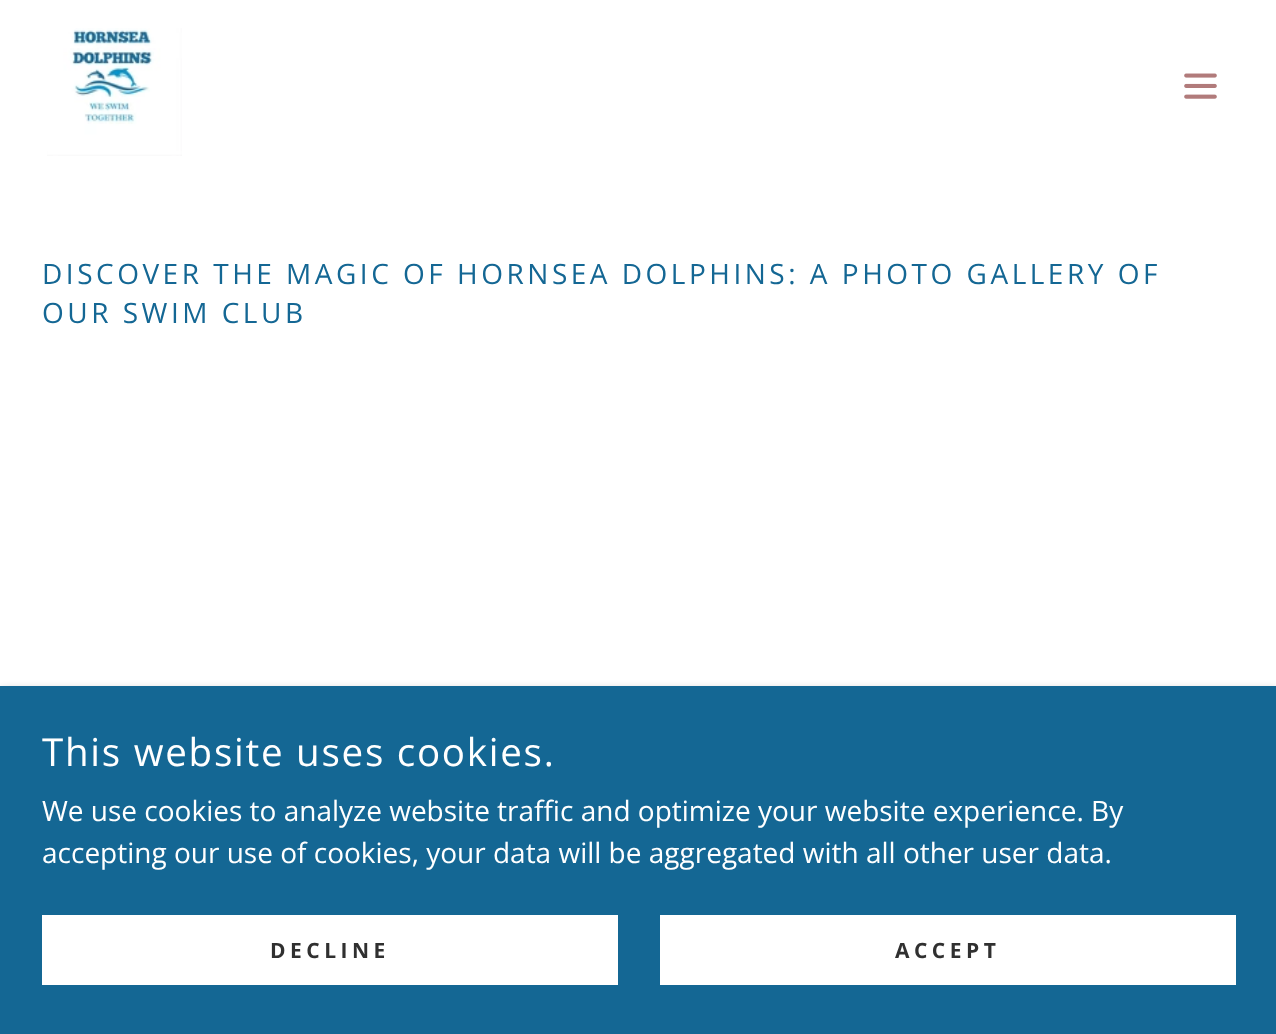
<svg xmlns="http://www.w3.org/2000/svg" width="1276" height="1034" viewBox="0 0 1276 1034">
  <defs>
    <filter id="blur1" x="-50%" y="-200%" width="200%" height="500%"><feGaussianBlur stdDeviation="5"/></filter>
  </defs>
  <rect width="100%" height="100%" fill="#ffffff"/>
  <image x="47" y="28" width="135" height="128" href="img1.png"/>
  <image x="1184" y="73" width="33" height="26" href="img2.png"/>
  <text x="42" y="284" font-family="Open Sans" font-size="28" letter-spacing="3.5" fill="#146794">DISCOVER THE MAGIC OF HORNSEA DOLPHINS: A PHOTO GALLERY OF</text>
  <text x="42" y="323" font-family="Open Sans" font-size="28" letter-spacing="3.5" fill="#146794">OUR SWIM CLUB</text>
  <rect x="0" y="690" width="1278" height="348" fill="#000000" fill-opacity="0.3" filter="url(#blur1)"/>
  <rect x="0" y="686" width="1276" height="348" fill="#146794"/>
  <text x="42" y="766" font-family="Open Sans" font-size="38.5" letter-spacing="1.75" fill="#ffffff">This website uses cookies.</text>
  <text x="42" y="821" font-family="Open Sans" font-size="28" fill="#ffffff">We use cookies to analyze website traffic and optimize your website experience. By</text>
  <text x="42" y="863" font-family="Open Sans" font-size="28" fill="#ffffff">accepting our use of cookies, your data will be aggregated with all other user data.</text>
  <rect x="42" y="915" width="576" height="70" fill="#ffffff"/>
  <text x="270" y="958" font-family="Open Sans" font-size="21" font-weight="bold" letter-spacing="4.5" fill="#303030">DECLINE</text>
  <rect x="660" y="915" width="576" height="70" fill="#ffffff"/>
  <text x="895" y="958" font-family="Open Sans" font-size="21" font-weight="bold" letter-spacing="4.5" fill="#303030">ACCEPT</text>
</svg>
